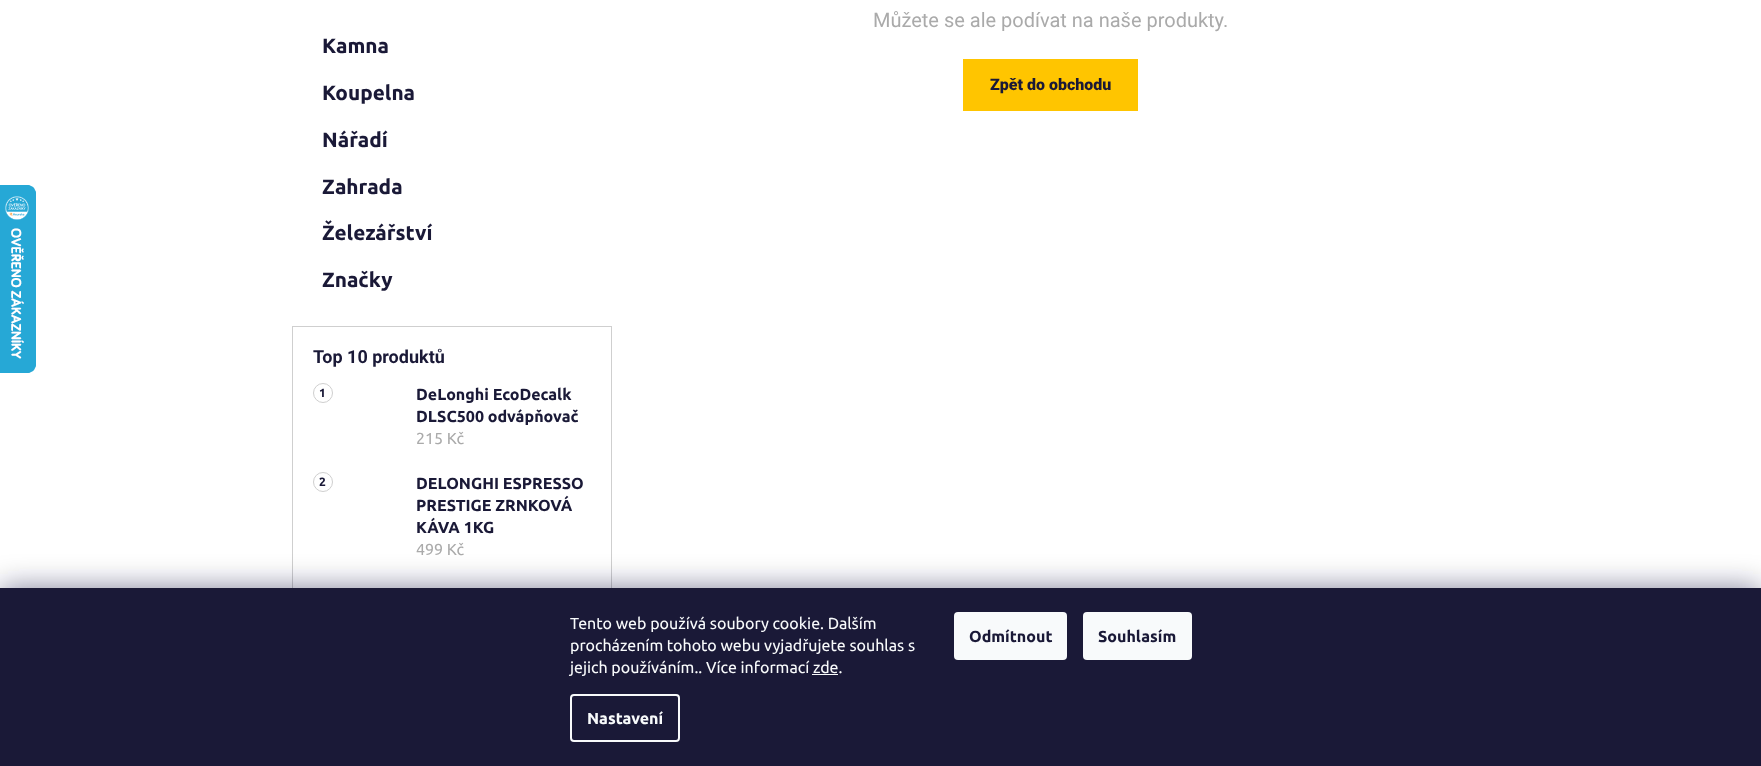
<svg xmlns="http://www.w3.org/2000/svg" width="1761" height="766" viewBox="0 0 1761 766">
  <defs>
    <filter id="blur1" x="-50%" y="-200%" width="200%" height="500%"><feGaussianBlur stdDeviation="15"/></filter>
  </defs>
  <rect width="100%" height="100%" fill="#ffffff"/>
  <image x="0" y="185" width="36" height="188" href="img1.png"/>
  <text x="322" y="53" font-family="Ubuntu" font-size="20.75" font-weight="bold" fill="#1a1937">Kamna</text>
  <text x="322" y="100" font-family="Ubuntu" font-size="20.75" font-weight="bold" fill="#1a1937">Koupelna</text>
  <text x="322" y="147" font-family="Ubuntu" font-size="20.75" font-weight="bold" fill="#1a1937">Nářadí</text>
  <text x="322" y="194" font-family="Ubuntu" font-size="20.75" font-weight="bold" fill="#1a1937">Zahrada</text>
  <text x="322" y="240" font-family="Ubuntu" font-size="20.75" font-weight="bold" fill="#1a1937">Železářství</text>
  <text x="322" y="287" font-family="Ubuntu" font-size="20.75" font-weight="bold" fill="#1a1937">Značky</text>
  <rect x="292.5" y="326.5" width="319" height="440" fill="none" stroke="#cfcfcf"/>
  <text x="313" y="363" font-family="Roboto" font-size="18" font-weight="bold" fill="#1a1937">Top 10 produktů</text>
  <circle cx="323" cy="393" r="9.5" fill="none" stroke="#cfcfcf"/>
  <text x="319" y="397" font-family="Ubuntu" font-size="12" font-weight="bold" fill="#1a1937">1</text>
  <text x="416" y="400" font-family="Ubuntu" font-size="16" font-weight="bold" fill="#1a1937">DeLonghi EcoDecalk</text>
  <text x="416" y="422" font-family="Ubuntu" font-size="16" font-weight="bold" fill="#1a1937">DLSC500 odvápňovač</text>
  <text x="416" y="444" font-family="Ubuntu" font-size="16" fill="#aaaaaa">215 Kč</text>
  <circle cx="323" cy="482" r="9.5" fill="none" stroke="#cfcfcf"/>
  <text x="319" y="486" font-family="Ubuntu" font-size="12" font-weight="bold" fill="#1a1937">2</text>
  <text x="416" y="489" font-family="Ubuntu" font-size="16" font-weight="bold" fill="#1a1937">DELONGHI ESPRESSO</text>
  <text x="416" y="511" font-family="Ubuntu" font-size="16" font-weight="bold" fill="#1a1937">PRESTIGE ZRNKOVÁ</text>
  <text x="416" y="533" font-family="Ubuntu" font-size="16" font-weight="bold" fill="#1a1937">KÁVA 1KG</text>
  <text x="416" y="555" font-family="Ubuntu" font-size="16" fill="#aaaaaa">499 Kč</text>
  <text x="873" y="27" font-family="Roboto" font-size="20" fill="#aaaaaa">Můžete se ale podívat na naše produkty.</text>
  <rect x="963" y="59" width="175" height="52" fill="#ffc500"/>
  <text x="990" y="90" font-family="Roboto" font-size="16" font-weight="900" fill="#1a1937">Zpět do obchodu</text>
  <rect x="0" y="588" width="1761" height="178" fill="#1b1939" fill-opacity="0.5" filter="url(#blur1)"/>
  <rect x="0" y="588" width="1761" height="178" fill="#1a1937"/>
  <text x="570" y="629" font-family="Ubuntu" font-size="16" fill="#f8fafb">Tento web používá soubory cookie. Dalším</text>
  <text x="570" y="651" font-family="Ubuntu" font-size="16" fill="#f8fafb">procházením tohoto webu vyjadřujete souhlas s</text>
  <text x="570" y="673" font-family="Ubuntu" font-size="16" fill="#f8fafb">jejich používáním.. Více informací zde.</text>
  <rect x="812" y="674" width="26" height="1" fill="#f8fafb"/>
  <rect x="571" y="695" width="108" height="46" rx="3" fill="none" stroke="#f8fafb" stroke-width="2"/>
  <text x="587" y="724" font-family="Ubuntu" font-size="16" font-weight="bold" fill="#f8fafb">Nastavení</text>
  <rect x="954" y="612" width="113" height="48" rx="4" fill="#f8fafb"/>
  <text x="969" y="642" font-family="Ubuntu" font-size="16" font-weight="bold" fill="#1a1937">Odmítnout</text>
  <rect x="1083" y="612" width="109" height="48" rx="4" fill="#f8fafb"/>
  <text x="1098" y="642" font-family="Ubuntu" font-size="16" font-weight="bold" fill="#1a1937">Souhlasím</text>
</svg>
